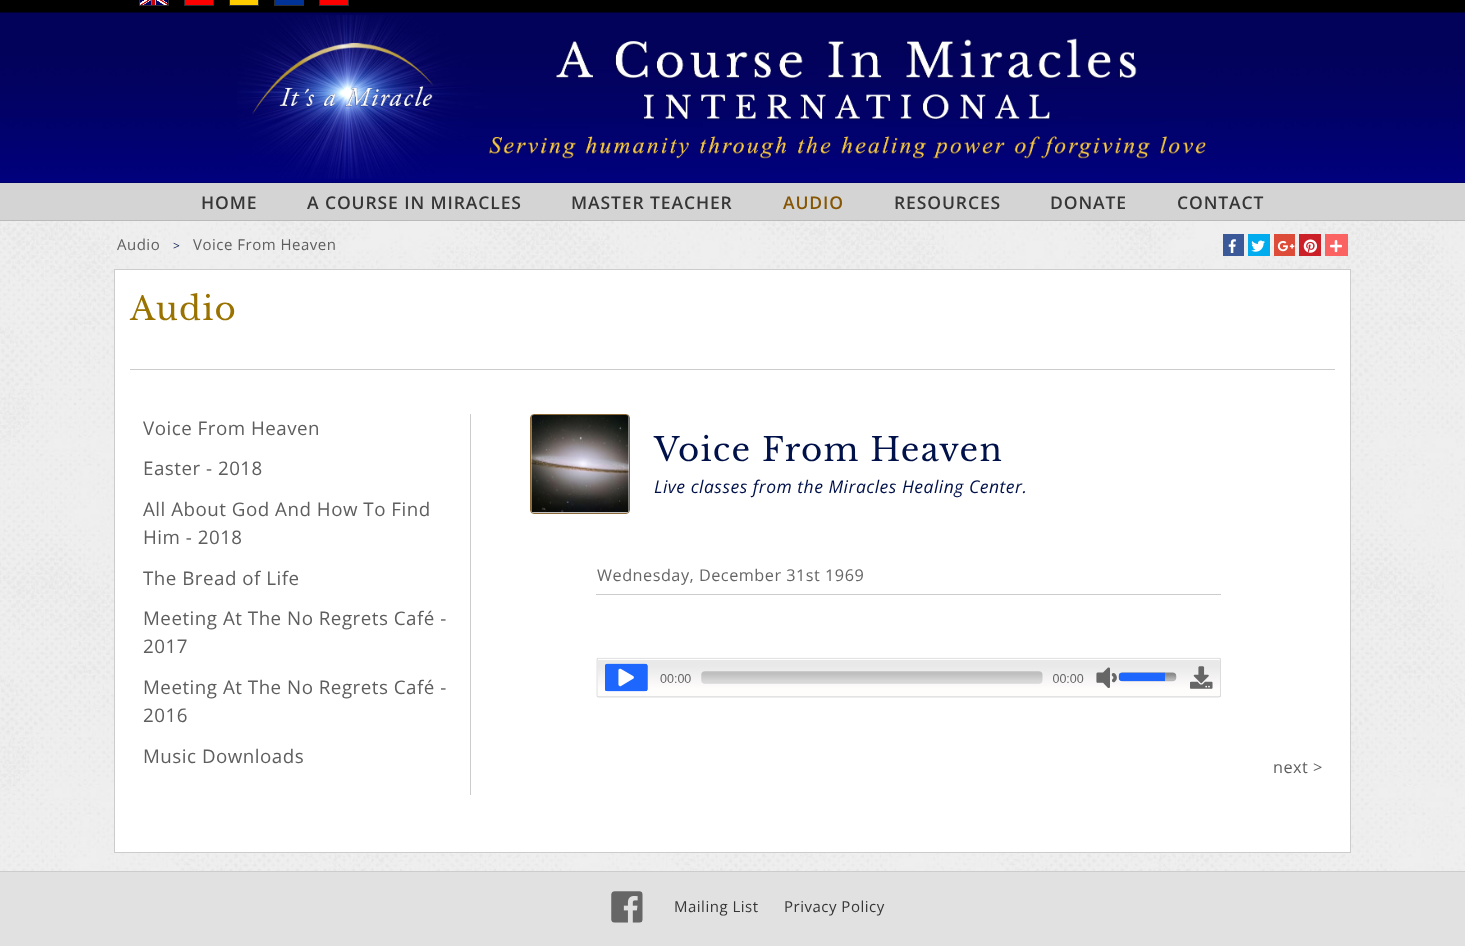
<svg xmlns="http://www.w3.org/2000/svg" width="1465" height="946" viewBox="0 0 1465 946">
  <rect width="100%" height="100%" fill="#ffffff"/>
  <image x="0" y="221" width="1465" height="650" href="img1.png"/>
  <rect x="0" y="0" width="1465" height="13" fill="#000000"/>
  <rect x="139.5" y="-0.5" width="29" height="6" fill="none" stroke="#2e2e2e"/>
  <rect x="184.5" y="-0.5" width="29" height="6" fill="none" stroke="#2e2e2e"/>
  <rect x="229.5" y="-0.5" width="29" height="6" fill="none" stroke="#2e2e2e"/>
  <rect x="274.5" y="-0.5" width="29" height="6" fill="none" stroke="#2e2e2e"/>
  <rect x="319.5" y="-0.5" width="29" height="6" fill="none" stroke="#2e2e2e"/>
  <image x="140" y="0" width="28" height="5" href="img2.png"/>
  <rect x="185" y="0" width="28" height="5" fill="#ff0000"/>
  <rect x="230" y="0" width="28" height="5" fill="#ffcc00"/>
  <rect x="275" y="0" width="28" height="5" fill="#003399"/>
  <rect x="320" y="0" width="28" height="5" fill="#ff0000"/>
  <rect x="0" y="182" width="1465" height="1" fill="#02015a"/>
  <image x="0" y="12" width="1465" height="171" href="img3.png"/>
  <image x="237" y="15" width="969" height="164" href="img4.png"/>
  <rect x="0" y="183" width="1465" height="37" fill="#d4d4d4"/>
  <rect x="0" y="220" width="1465" height="1" fill="#bababa"/>
  <text x="201" y="209" font-family="Open Sans" font-size="17.5" font-weight="600" letter-spacing="0.9" fill="#363636">HOME</text>
  <text x="307" y="209" font-family="Open Sans" font-size="17.5" font-weight="600" letter-spacing="0.9" fill="#363636">A COURSE IN MIRACLES</text>
  <text x="571" y="209" font-family="Open Sans" font-size="17.5" font-weight="600" letter-spacing="0.9" fill="#363636">MASTER TEACHER</text>
  <text x="783" y="209" font-family="Open Sans" font-size="17.5" font-weight="600" letter-spacing="0.9" fill="#865604">AUDIO</text>
  <text x="894" y="209" font-family="Open Sans" font-size="17.5" font-weight="600" letter-spacing="0.9" fill="#363636">RESOURCES</text>
  <text x="1050" y="209" font-family="Open Sans" font-size="17.5" font-weight="600" letter-spacing="0.9" fill="#363636">DONATE</text>
  <text x="1177" y="209" font-family="Open Sans" font-size="17.5" font-weight="600" letter-spacing="0.9" fill="#363636">CONTACT</text>
  <text x="117" y="250" font-family="Open Sans" font-size="15" letter-spacing="0.5" fill="#5e5e5e">Audio</text>
  <text x="173" y="250" font-family="Open Sans" font-size="12" letter-spacing="0.5" fill="#001149">&gt;</text>
  <text x="193" y="250" font-family="Open Sans" font-size="15" letter-spacing="0.5" fill="#5e5e5e">Voice From Heaven</text>
  <rect x="1223" y="234" width="21" height="22" fill="#3b5998"/>
  <image x="1228" y="239" width="8" height="14" href="img5.png"/>
  <rect x="1248" y="234" width="22" height="22" fill="#00aced"/>
  <image x="1251" y="240" width="14" height="12" href="img6.png"/>
  <rect x="1274" y="234" width="21" height="22" fill="#dd4b39"/>
  <image x="1277" y="240" width="18" height="12" href="img7.png"/>
  <rect x="1299" y="234" width="22" height="22" fill="#cb2027"/>
  <image x="1303" y="239" width="15" height="14" href="img8.png"/>
  <rect x="1325" y="234" width="23" height="22" fill="#fb6262"/>
  <image x="1330" y="240" width="12" height="13" href="img9.png"/>
  <rect x="114.5" y="269.5" width="1236" height="583" fill="#ffffff" stroke="#cccccc"/>
  <text x="130" y="320" font-family="Libre Baskerville" font-size="32.5" letter-spacing="1.25" fill="#997200">Audio</text>
  <rect x="130" y="369" width="1205" height="1" fill="#cccccc"/>
  <rect x="470" y="414" width="1" height="381" fill="#cccccc"/>
  <text x="143" y="435" font-family="Open Sans" font-size="18.75" letter-spacing="0.5" fill="#5e5e5e">Voice From Heaven</text>
  <text x="143" y="475" font-family="Open Sans" font-size="18.75" letter-spacing="0.5" fill="#5e5e5e">Easter - 2018</text>
  <text x="143" y="516" font-family="Open Sans" font-size="18.75" letter-spacing="0.5" fill="#5e5e5e">All About God And How To Find</text>
  <text x="143" y="544" font-family="Open Sans" font-size="18.75" letter-spacing="0.5" fill="#5e5e5e">Him - 2018</text>
  <text x="143" y="585" font-family="Open Sans" font-size="18.75" letter-spacing="0.5" fill="#5e5e5e">The Bread of Life</text>
  <text x="143" y="625" font-family="Open Sans" font-size="18.75" letter-spacing="0.5" fill="#5e5e5e">Meeting At The No Regrets Café -</text>
  <text x="143" y="653" font-family="Open Sans" font-size="18.75" letter-spacing="0.5" fill="#5e5e5e">2017</text>
  <text x="143" y="694" font-family="Open Sans" font-size="18.75" letter-spacing="0.5" fill="#5e5e5e">Meeting At The No Regrets Café -</text>
  <text x="143" y="722" font-family="Open Sans" font-size="18.75" letter-spacing="0.5" fill="#5e5e5e">2016</text>
  <text x="143" y="763" font-family="Open Sans" font-size="18.75" letter-spacing="0.5" fill="#5e5e5e">Music Downloads</text>
  <rect x="530.5" y="414.5" width="99" height="99" rx="3.5" fill="none" stroke="#8b6838"/>
  <image x="531" y="415" width="98" height="98" href="img10.png"/>
  <text x="654" y="461" font-family="Libre Baskerville" font-size="32.5" letter-spacing="1.25" fill="#001149">Voice From Heaven</text>
  <text x="654" y="493" font-family="Open Sans" font-size="17.5" font-style="italic" letter-spacing="0.5" fill="#001149">Live classes from the Miracles Healing Center.</text>
  <rect x="596" y="594" width="625" height="1" fill="#cccccc"/>
  <text x="597" y="581" font-family="Open Sans" font-size="16.25" letter-spacing="0.5" fill="#666666">Wednesday, December 31st 1969</text>
  <image x="596" y="657" width="625" height="41" href="img11.png"/>
  <text x="1273" y="773" font-family="Open Sans" font-size="16.25" letter-spacing="0.5" fill="#5e5e5e">next &gt;</text>
  <rect x="0" y="872" width="1465" height="74" fill="#e1e1e1"/>
  <rect x="0" y="871" width="1465" height="1" fill="#cccccc"/>
  <image x="611" y="891" width="32" height="32" href="img12.png"/>
  <text x="674" y="912" font-family="Open Sans" font-size="15" letter-spacing="0.5" fill="#363636">Mailing List</text>
  <text x="784" y="912" font-family="Open Sans" font-size="15" letter-spacing="0.5" fill="#363636">Privacy Policy</text>
</svg>
